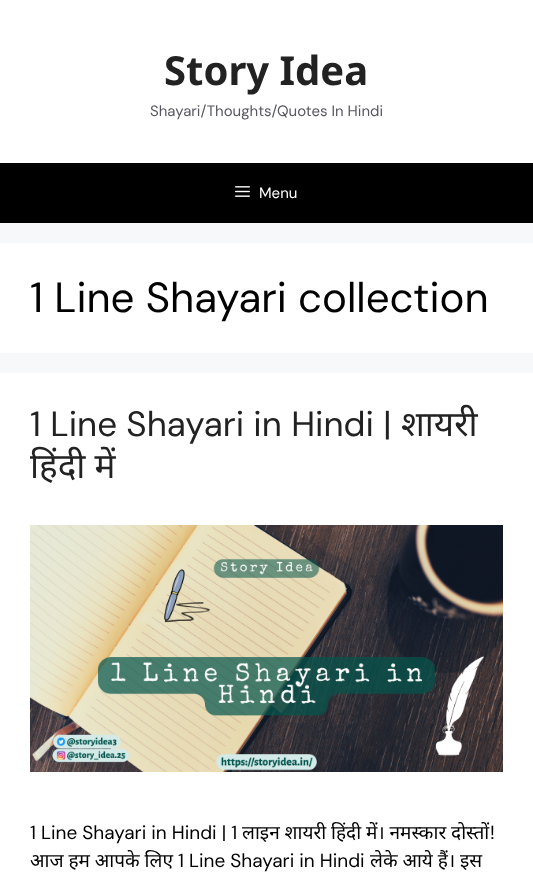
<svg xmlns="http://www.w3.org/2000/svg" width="533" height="882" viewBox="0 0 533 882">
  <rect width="100%" height="100%" fill="#f7f8f9"/>
  <rect x="0" y="0" width="533" height="163" fill="#ffffff"/>
  <text x="164" y="85" font-family="Noto Sans" font-size="40" font-weight="bold" fill="#222222">Story Idea</text>
  <text x="150" y="116" font-family="DM Sans" font-size="15" fill="#575760">Shayari/Thoughts/Quotes In Hindi</text>
  <rect x="0" y="163" width="533" height="60" fill="#000000"/>
  <image x="235" y="186" width="15" height="11" href="img1.png"/>
  <text x="259" y="198" font-family="DM Sans" font-size="15" fill="#ffffff">Menu</text>
  <rect x="0" y="243" width="533" height="110" fill="#ffffff"/>
  <text x="30" y="312" font-family="DM Sans" font-size="42" fill="#000000">1 Line Shayari collection</text>
  <rect x="0" y="373" width="533" height="509" fill="#ffffff"/>
  <text x="30" y="436" font-family="DM Sans" font-size="35" fill="#222222">1 Line Shayari in Hindi |</text>
  <text x="401" y="436" font-family="Noto Sans" font-size="35" fill="#222222">शायरी</text>
  <text x="30" y="478" font-family="Noto Sans" font-size="35" fill="#222222">हिंदी में</text>
  <image x="30" y="525" width="473" height="247" href="img2.png"/>
  <text x="30" y="839" font-family="DM Sans" font-size="19" fill="#000000">1 Line Shayari in Hindi | 1</text>
  <text x="242" y="839" font-family="Noto Sans" font-size="19" fill="#000000">लाइन शायरी हिंदी में। नमस्कार दोस्तों</text>
  <text x="490" y="839" font-family="DM Sans" font-size="19" fill="#000000">!</text>
  <text x="30" y="867" font-family="Noto Sans" font-size="19" fill="#000000">आज हम आपके लिए</text>
  <text x="178" y="867" font-family="DM Sans" font-size="19" fill="#000000">1 Line Shayari in Hindi</text>
  <text x="370" y="867" font-family="Noto Sans" font-size="19" fill="#000000">लेके आये हैं। इस</text>
</svg>
